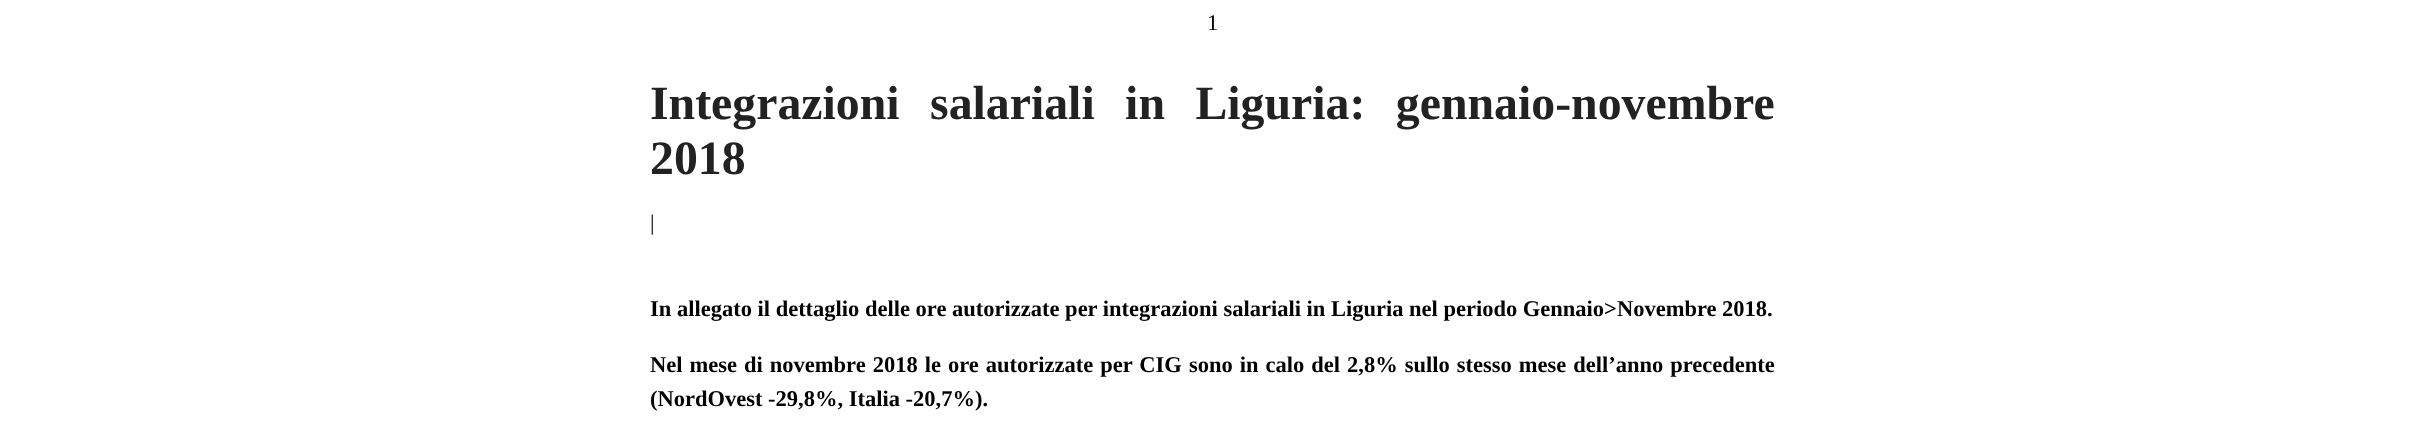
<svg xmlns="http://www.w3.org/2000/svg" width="2425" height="446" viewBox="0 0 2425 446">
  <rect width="100%" height="100%" fill="#ffffff"/>
  <text x="1207" y="30" font-family="Liberation Serif" font-size="22.5" fill="#000000">1</text>
  <text x="650" y="119" word-spacing="18.5" font-family="Liberation Serif" font-size="47.8" font-weight="bold" fill="#222222">Integrazioni salariali in Liguria: gennaio-novembre</text>
  <text x="650" y="174" font-family="Liberation Serif" font-size="47.8" font-weight="bold" fill="#222222">2018</text>
  <text x="650" y="230" font-family="Liberation Serif" font-size="22.5" fill="#000000">|</text>
  <text x="650" y="316" font-family="Liberation Serif" font-size="22.5" font-weight="bold" fill="#000000">In allegato il dettaglio delle ore autorizzate per integrazioni salariali in Liguria nel periodo Gennaio&gt;Novembre 2018.</text>
  <text x="650" y="372" word-spacing="1.4" font-family="Liberation Serif" font-size="22.5" font-weight="bold" fill="#000000">Nel mese di novembre 2018 le ore autorizzate per CIG sono in calo del 2,8% sullo stesso mese dell’anno precedente</text>
  <text x="650" y="406" font-family="Liberation Serif" font-size="22.5" font-weight="bold" fill="#000000">(NordOvest -29,8%, Italia -20,7%).</text>
</svg>
